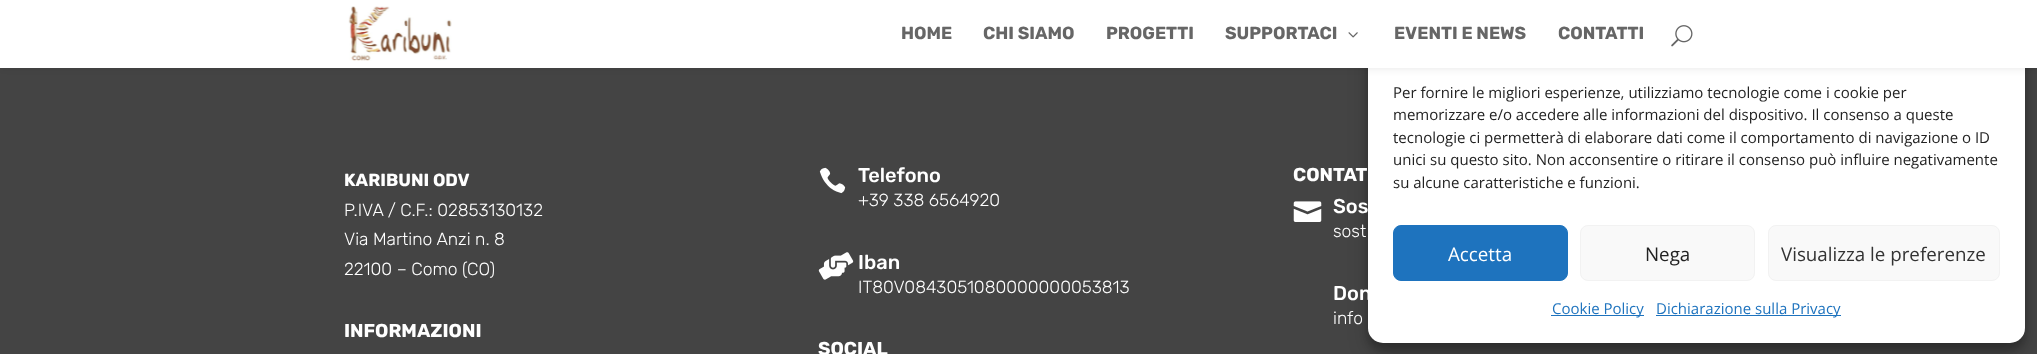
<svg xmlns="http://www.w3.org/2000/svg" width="2037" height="354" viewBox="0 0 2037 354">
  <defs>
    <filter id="blur1" x="-50%" y="-200%" width="200%" height="500%"><feGaussianBlur stdDeviation="4"/></filter>
    <filter id="blur2" x="-50%" y="-200%" width="200%" height="500%"><feGaussianBlur stdDeviation="12.5"/></filter>
    <filter id="blur3" x="-50%" y="-200%" width="200%" height="500%"><feGaussianBlur stdDeviation="4.5"/></filter>
  </defs>
  <rect width="100%" height="100%" fill="#444444"/>
  <rect x="1368" y="20" width="657" height="330" rx="15" fill="#000000" fill-opacity="0.23" filter="url(#blur1)"/>
  <rect x="1368" y="25" width="657" height="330" rx="15" fill="#000000" fill-opacity="0.19" filter="url(#blur2)"/>
  <rect x="1368" y="13" width="657" height="330" rx="15" fill="#ffffff"/>
  <rect x="0" y="0" width="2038" height="68" fill="#000000" fill-opacity="0.1" filter="url(#blur3)"/>
  <rect x="0" y="0" width="2037" height="68" fill="#ffffff"/>
  <image x="348" y="6" width="104" height="55" href="img1.png"/>
  <text x="901" y="39" font-family="Rubik" font-size="17.5" font-weight="bold" fill="#666666">HOME</text>
  <text x="983" y="39" font-family="Rubik" font-size="17.5" font-weight="bold" fill="#666666">CHI SIAMO</text>
  <text x="1106" y="39" font-family="Rubik" font-size="17.5" font-weight="bold" fill="#666666">PROGETTI</text>
  <text x="1225" y="39" font-family="Rubik" font-size="17.5" font-weight="bold" fill="#666666">SUPPORTACI</text>
  <image x="1348" y="32" width="10" height="6" href="img2.png"/>
  <text x="1394" y="39" font-family="Rubik" font-size="17.5" font-weight="bold" fill="#666666">EVENTI E NEWS</text>
  <text x="1558" y="39" font-family="Rubik" font-size="17.5" font-weight="bold" fill="#666666">CONTATTI</text>
  <image x="1671" y="25" width="22" height="22" href="img3.png"/>
  <text x="344" y="186" font-family="Rubik" font-size="17.5" font-weight="bold" fill="#ffffff">KARIBUNI ODV</text>
  <text x="344" y="216" font-family="Rubik" font-size="17.5" font-weight="300" fill="#ffffff">P.IVA / C.F.: 02853130132</text>
  <text x="344" y="245" font-family="Rubik" font-size="17.5" font-weight="300" fill="#ffffff">Via Martino Anzi n. 8</text>
  <text x="344" y="275" font-family="Rubik" font-size="17.5" font-weight="300" fill="#ffffff">22100 – Como (CO)</text>
  <text x="344" y="337" font-family="Rubik" font-size="18.75" font-weight="bold" fill="#ffffff">INFORMAZIONI</text>
  <image x="819" y="167" width="27" height="27" href="img4.png"/>
  <text x="858" y="182" font-family="Rubik" font-size="20" font-weight="500" fill="#ffffff">Telefono</text>
  <text x="858" y="206" font-family="Rubik" font-size="17.5" font-weight="300" fill="#ffffff">+39 338 6564920</text>
  <image x="818" y="252" width="36" height="28" href="img5.png"/>
  <text x="858" y="269" font-family="Rubik" font-size="20" font-weight="500" fill="#ffffff">Iban</text>
  <text x="858" y="293" font-family="Rubik" font-size="17.5" font-weight="300" fill="#ffffff">IT80V0843051080000000053813</text>
  <text x="818" y="355" font-family="Rubik" font-size="18.75" font-weight="bold" fill="#ffffff">SOCIAL</text>
  <text x="1293" y="181" font-family="Rubik" font-size="18.75" font-weight="bold" fill="#ffffff">CONTAT</text>
  <image x="1293" y="201" width="29" height="21" href="img6.png"/>
  <text x="1333" y="213" font-family="Rubik" font-size="20" font-weight="500" fill="#ffffff">Sos</text>
  <text x="1333" y="237" font-family="Rubik" font-size="17.5" font-weight="300" fill="#ffffff">sost</text>
  <text x="1333" y="300" font-family="Rubik" font-size="20" font-weight="500" fill="#ffffff">Don</text>
  <text x="1333" y="324" font-family="Rubik" font-size="17.5" font-weight="300" fill="#ffffff">info</text>
  <text x="1393" y="98" font-family="Open Sans" font-size="15" fill="#222222">Per fornire le migliori esperienze, utilizziamo tecnologie come i cookie per</text>
  <text x="1393" y="120" font-family="Open Sans" font-size="15" fill="#222222">memorizzare e/o accedere alle informazioni del dispositivo. Il consenso a queste</text>
  <text x="1393" y="143" font-family="Open Sans" font-size="15" fill="#222222">tecnologie ci permetterà di elaborare dati come il comportamento di navigazione o ID</text>
  <text x="1393" y="165" font-family="Open Sans" font-size="15" fill="#222222">unici su questo sito. Non acconsentire o ritirare il consenso può influire negativamente</text>
  <text x="1393" y="188" font-family="Open Sans" font-size="15" fill="#222222">su alcune caratteristiche e funzioni.</text>
  <rect x="1393.5" y="225.5" width="174" height="55" rx="7.5" fill="#1e73be" stroke="#1e73be"/>
  <text x="1448" y="261" font-family="Open Sans" font-size="18.75" fill="#ffffff">Accetta</text>
  <rect x="1580.5" y="225.5" width="174" height="55" rx="7.5" fill="#f9f9f9" stroke="#f2f2f2"/>
  <text x="1645" y="261" font-family="Open Sans" font-size="18.75" fill="#222222">Nega</text>
  <rect x="1768.5" y="225.5" width="231" height="55" rx="7.5" fill="#f9f9f9" stroke="#f2f2f2"/>
  <text x="1781" y="261" font-family="Open Sans" font-size="18.75" fill="#333333">Visualizza le preferenze</text>
  <rect x="1551" y="315" width="93" height="1" fill="#1e73be"/>
  <text x="1552" y="314" font-family="Open Sans" font-size="15" fill="#1e73be">Cookie Policy</text>
  <rect x="1656" y="315" width="185" height="1" fill="#1e73be"/>
  <text x="1656" y="314" font-family="Open Sans" font-size="15" fill="#1e73be">Dichiarazione sulla Privacy</text>
</svg>
